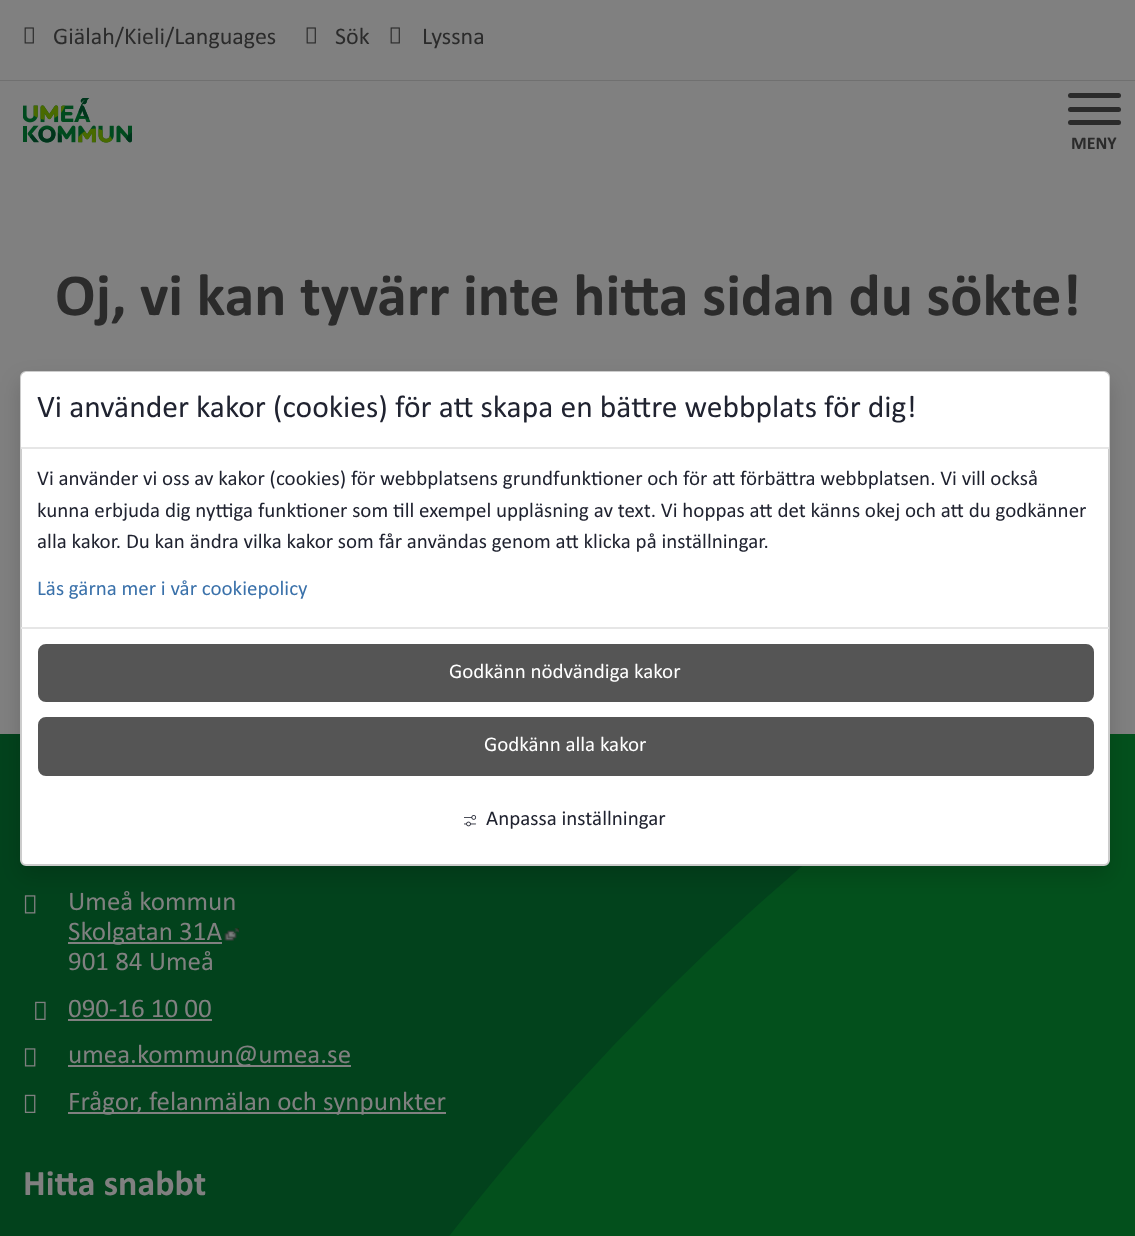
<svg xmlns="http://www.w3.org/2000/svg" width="1135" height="1236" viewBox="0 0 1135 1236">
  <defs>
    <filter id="blur1" x="-50%" y="-200%" width="200%" height="500%"><feGaussianBlur stdDeviation="10.5"/></filter>
  </defs>
  <rect width="100%" height="100%" fill="#808080"/>
  <rect x="0" y="80" width="1135" height="1" fill="#707070"/>
  <image x="24" y="27" width="10" height="17" href="img1.png"/>
  <text x="53" y="44" font-family="Calibri" font-size="24" fill="#2b2b2b">Giälah/Kieli/Languages</text>
  <image x="306" y="27" width="10" height="17" href="img1.png"/>
  <text x="335" y="44" font-family="Calibri" font-size="24" fill="#2b2b2b">Sök</text>
  <image x="390" y="27" width="10" height="17" href="img1.png"/>
  <text x="422" y="44" font-family="Calibri" font-size="24" fill="#2b2b2b">Lyssna</text>
  <image x="23" y="98" width="109" height="45" href="img2.png"/>
  <rect x="1068" y="93" width="53" height="5" rx="2.5" fill="#2b2b2b"/>
  <rect x="1068" y="107" width="53" height="5" rx="2.5" fill="#2b2b2b"/>
  <rect x="1068" y="120" width="53" height="5" rx="2.5" fill="#2b2b2b"/>
  <text x="1071" y="149" font-family="Calibri" font-size="18" font-weight="bold" fill="#2b2b2b">MENY</text>
  <text x="55" y="315" font-family="Calibri" font-size="60" font-weight="bold" fill="#2b2b2b">Oj, vi kan tyvärr inte hitta sidan du sökte!</text>
  <image x="0" y="734" width="1135" height="502" href="img3.png"/>
  <image x="24" y="895" width="12" height="19" href="img4.png"/>
  <text x="68" y="910" font-family="Calibri" font-size="27" fill="#808080">Umeå kommun</text>
  <rect x="68" y="942" width="154" height="2" fill="#808080"/>
  <text x="68" y="940" font-family="Calibri" font-size="27" fill="#808080">Skolgatan 31A</text>
  <image x="224" y="928" width="15" height="13" href="img5.png"/>
  <text x="68" y="970" font-family="Calibri" font-size="27" fill="#808080">901 84 Umeå</text>
  <image x="35" y="1001" width="11" height="19" href="img6.png"/>
  <text x="68" y="1017" font-family="Calibri" font-size="27" fill="#808080">090-16 10 00</text>
  <rect x="68" y="1019" width="144" height="2" fill="#808080"/>
  <image x="24" y="1048" width="12" height="19" href="img4.png"/>
  <rect x="68" y="1065" width="283" height="2" fill="#808080"/>
  <text x="68" y="1063" font-family="Calibri" font-size="27" fill="#808080">umea.kommun@umea.se</text>
  <image x="24" y="1094" width="12" height="19" href="img7.png"/>
  <rect x="68" y="1112" width="378" height="2" fill="#808080"/>
  <text x="68" y="1110" font-family="Calibri" font-size="27" fill="#808080">Frågor, felanmälan och synpunkter</text>
  <text x="23" y="1195" font-family="Calibri" font-size="36" font-weight="bold" fill="#808080">Hitta snabbt</text>
  <rect x="20" y="381" width="1090" height="495" rx="6" fill="#000000" fill-opacity="0.15" filter="url(#blur1)"/>
  <rect x="21" y="372" width="1088" height="493" rx="5" fill="#ffffff" stroke="#cccccc" stroke-width="2"/>
  <path d="M27 372H1103C1106.5 372 1109 374.5 1109 378V449H21V378C21 374.5 23.5 372 27 372Z" fill="#ffffff"/>
  <rect x="21" y="447" width="1088" height="2" fill="#e6e6e6"/>
  <text x="37" y="417" font-family="Calibri" font-size="31.5" fill="#202330">Vi använder kakor (cookies) för att skapa en bättre webbplats för dig!</text>
  <text x="37" y="485" font-family="Calibri" font-size="21" fill="#202330">Vi använder vi oss av kakor (cookies) för webbplatsens grundfunktioner och för att förbättra webbplatsen. Vi vill också</text>
  <text x="37" y="517" font-family="Calibri" font-size="21" fill="#202330">kunna erbjuda dig nyttiga funktioner som till exempel uppläsning av text. Vi hoppas att det känns okej och att du godkänner</text>
  <text x="37" y="548" font-family="Calibri" font-size="21" fill="#202330">alla kakor. Du kan ändra vilka kakor som får användas genom att klicka på inställningar.</text>
  <text x="37" y="595" font-family="Calibri" font-size="21" fill="#3a71aa">Läs gärna mer i vår cookiepolicy</text>
  <rect x="21" y="627" width="1088" height="2" fill="#e6e6e6"/>
  <rect x="39" y="645" width="1054" height="56" rx="7" fill="#555555" stroke="#555555" stroke-width="2"/>
  <text x="449" y="678" font-family="Calibri" font-size="21" fill="#ffffff">Godkänn nödvändiga kakor</text>
  <rect x="39" y="718" width="1054" height="57" rx="7" fill="#555555" stroke="#555555" stroke-width="2"/>
  <text x="484" y="751" font-family="Calibri" font-size="21" fill="#ffffff">Godkänn alla kakor</text>
  <image x="464" y="815" width="13" height="12" href="img8.png"/>
  <text x="486" y="825" font-family="Calibri" font-size="21" fill="#202330">Anpassa inställningar</text>
</svg>
